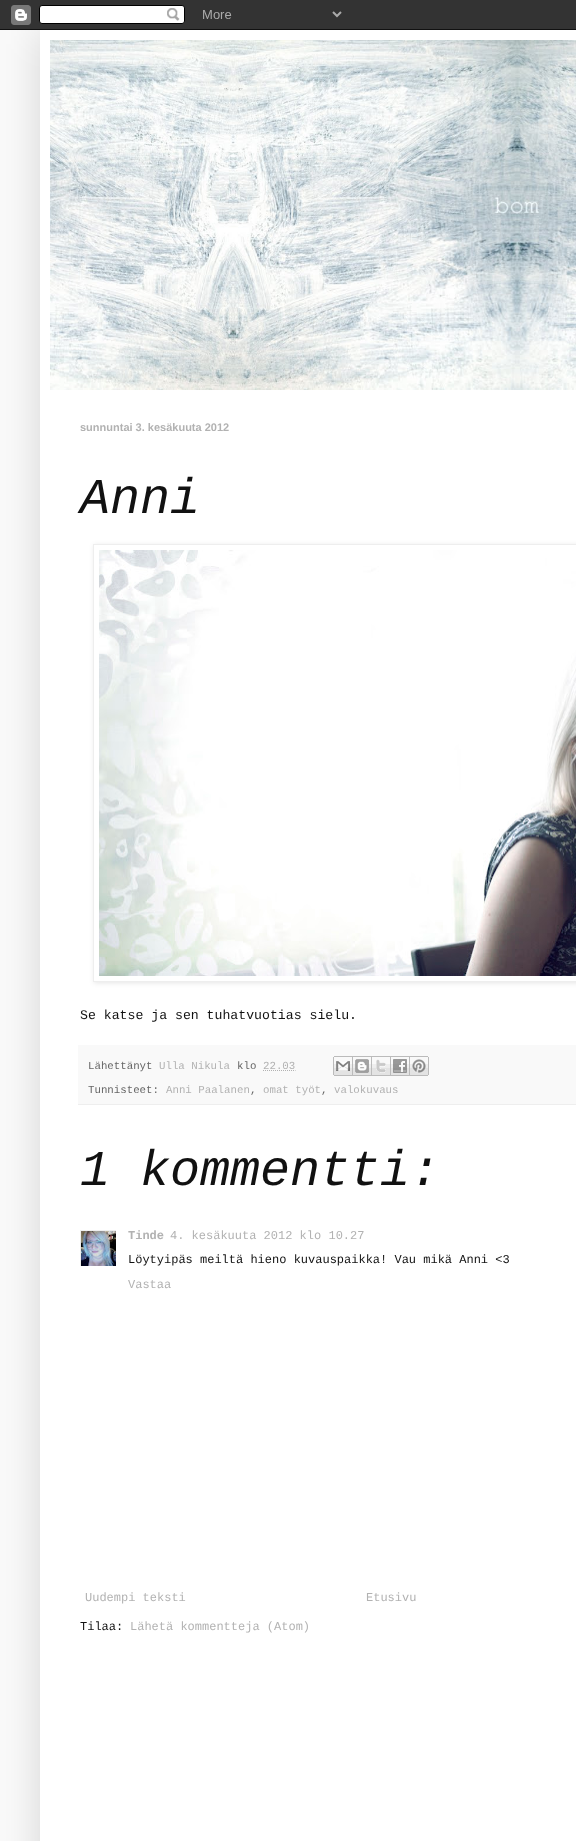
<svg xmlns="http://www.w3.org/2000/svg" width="576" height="1841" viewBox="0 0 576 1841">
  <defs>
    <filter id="blur1" x="-50%" y="-200%" width="200%" height="500%"><feGaussianBlur stdDeviation="20"/></filter>
    <clipPath id="clip1"><path d="M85 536H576V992H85ZM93 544H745V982H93Z" clip-rule="evenodd"/></clipPath>
    <filter id="blur2" x="-50%" y="-200%" width="200%" height="500%"><feGaussianBlur stdDeviation="2.5"/></filter>
    <clipPath id="clip2"><rect x="80" y="1230" width="36" height="36"/></clipPath>
  </defs>
  <rect width="100%" height="100%" fill="#fafafa"/>
  <rect x="40" y="30" width="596" height="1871" fill="#000000" fill-opacity="0.15" filter="url(#blur1)"/>
  <image x="0" y="0" width="576" height="30" href="img1.png"/>
  <rect x="40" y="30" width="536" height="1811" fill="#ffffff"/>
  <image x="50" y="40" width="526" height="350" href="img2.png"/>
  <text x="80" y="431" font-family="Liberation Sans" font-size="11" font-weight="bold" fill="#b2b2b2">sunnuntai 3. kesäkuuta 2012</text>
  <text x="80" y="513" font-family="Liberation Mono" font-size="50" font-style="italic" fill="#111111">Anni</text>
  <g clip-path="url(#clip1)">
    <rect x="94" y="545" width="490" height="438" fill="#000000" fill-opacity="0.1" filter="url(#blur2)"/>
  </g>
  <rect x="93.5" y="544.5" width="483" height="437" fill="none" stroke="#eeeeee"/>
  <image x="99" y="550" width="477" height="426" href="img3.png"/>
  <text x="80" y="1019" font-family="Liberation Mono" font-size="13.2" fill="#111111">Se katse ja sen tuhatvuotias sielu.</text>
  <rect x="78" y="1045" width="498" height="59" fill="#f9f9f9"/>
  <rect x="78" y="1104" width="498" height="1" fill="#eeeeee"/>
  <text x="88" y="1069" font-family="Liberation Mono" font-size="10.75" fill="#666666">Lähettänyt</text>
  <text x="159" y="1069" font-family="Liberation Mono" font-size="10.75" fill="#b2b2b2">Ulla Nikula</text>
  <text x="237" y="1069" font-family="Liberation Mono" font-size="10.75" fill="#666666">klo</text>
  <text x="263" y="1069" font-family="Liberation Mono" font-size="10.75" fill="#b2b2b2">22.03</text>
  <path d="M263 1070.5H295.5" fill="none" stroke="#b2b2b2" stroke-dasharray="1 1"/>
  <image x="333" y="1056" width="20" height="20" href="img4.png"/>
  <image x="353" y="1056" width="19" height="20" href="img5.png"/>
  <image x="372" y="1056" width="19" height="20" href="img6.png"/>
  <image x="391" y="1056" width="19" height="20" href="img7.png"/>
  <image x="410" y="1056" width="19" height="20" href="img8.png"/>
  <text x="88" y="1093" font-family="Liberation Mono" font-size="10.75" fill="#666666">Tunnisteet:</text>
  <text x="166" y="1093" font-family="Liberation Mono" font-size="10.75" fill="#b2b2b2">Anni Paalanen</text>
  <text x="250" y="1093" font-family="Liberation Mono" font-size="10.75" fill="#666666">,</text>
  <text x="263" y="1093" font-family="Liberation Mono" font-size="10.75" fill="#b2b2b2">omat työt</text>
  <text x="321" y="1093" font-family="Liberation Mono" font-size="10.75" fill="#666666">,</text>
  <text x="334" y="1093" font-family="Liberation Mono" font-size="10.75" fill="#b2b2b2">valokuvaus</text>
  <text x="80" y="1185" font-family="Liberation Mono" font-size="50" font-style="italic" fill="#111111">1 kommentti:</text>
  <g clip-path="url(#clip2)">
    <rect x="80.5" y="1230.5" width="37" height="37" fill="none" stroke="#eeeeee"/>
  </g>
  <image x="81" y="1231" width="35" height="35" href="img9.png"/>
  <text x="128" y="1239" font-family="Liberation Mono" font-size="12" font-weight="bold" fill="#b2b2b2">Tinde</text>
  <text x="170" y="1239" font-family="Liberation Mono" font-size="12" fill="#b2b2b2">4. kesäkuuta 2012 klo 10.27</text>
  <text x="128" y="1263" font-family="Liberation Mono" font-size="12" fill="#111111">Löytyipäs meiltä hieno kuvauspaikka! Vau mikä Anni &lt;3</text>
  <text x="128" y="1288" font-family="Liberation Mono" font-size="12" fill="#b2b2b2">Vastaa</text>
  <text x="85" y="1601" font-family="Liberation Mono" font-size="12" fill="#b2b2b2">Uudempi teksti</text>
  <text x="366" y="1601" font-family="Liberation Mono" font-size="12" fill="#b2b2b2">Etusivu</text>
  <text x="80" y="1630" font-family="Liberation Mono" font-size="12" fill="#111111">Tilaa:</text>
  <text x="130" y="1630" font-family="Liberation Mono" font-size="12" fill="#b2b2b2">Lähetä kommentteja (Atom)</text>
</svg>
